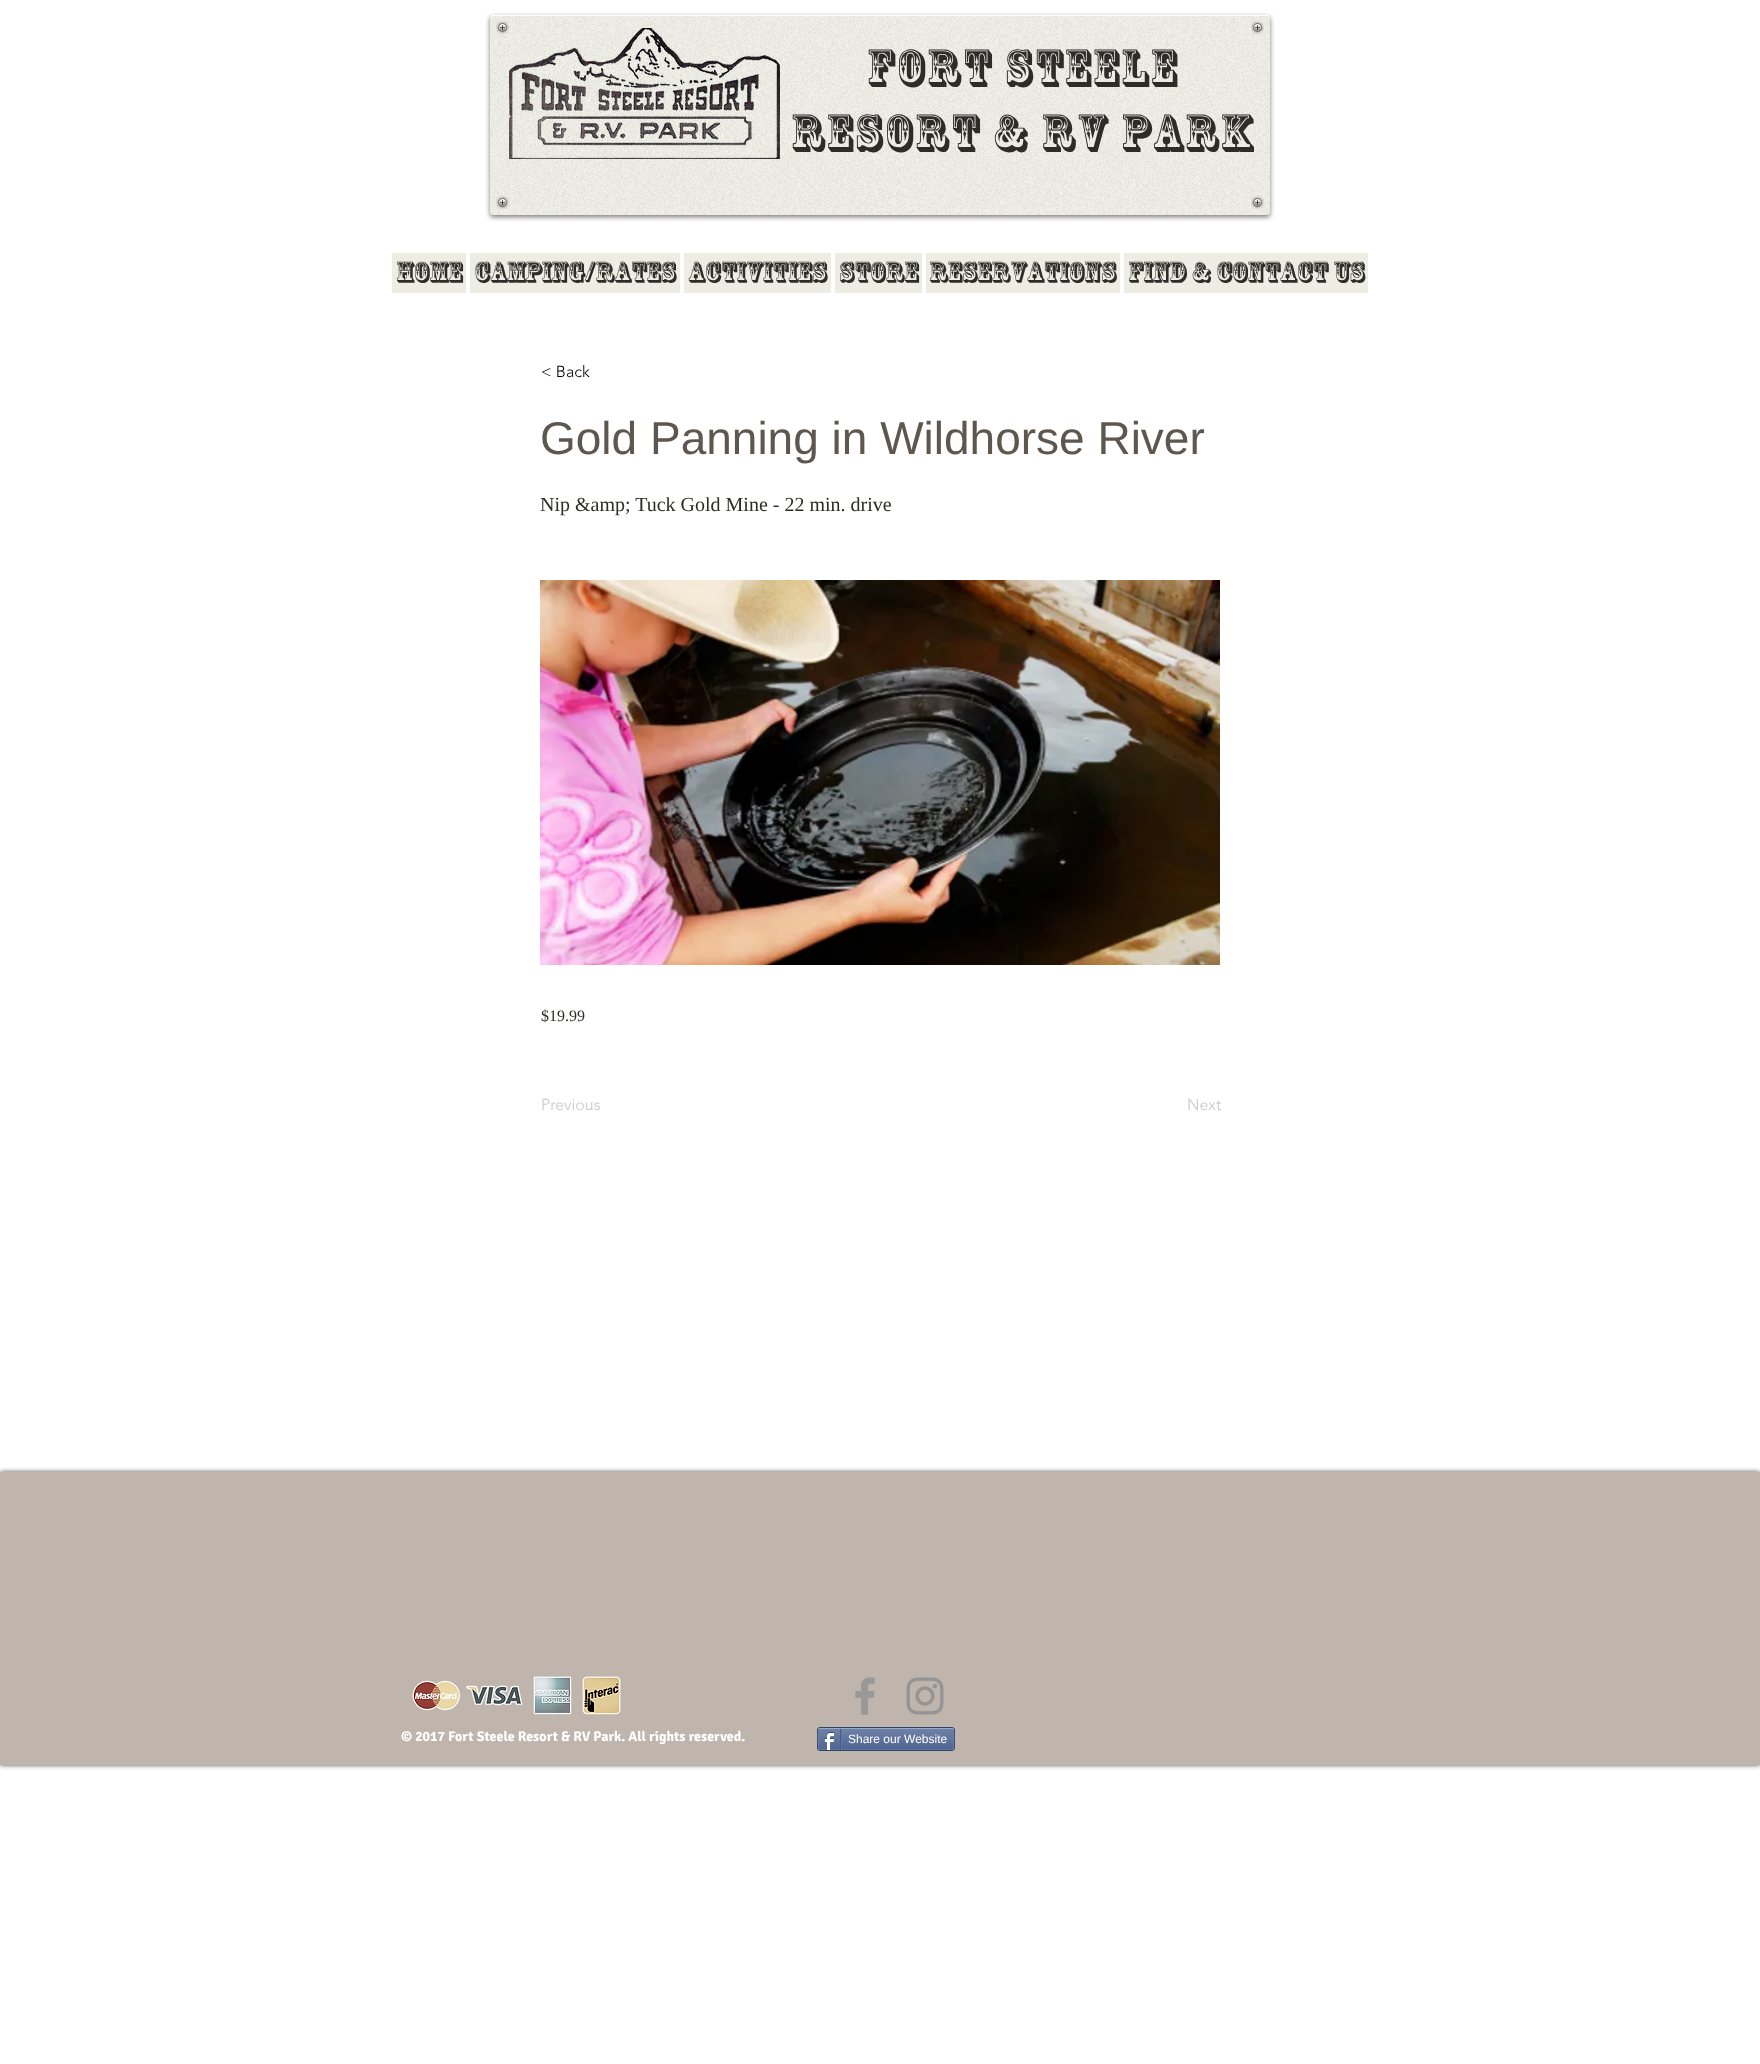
<svg xmlns="http://www.w3.org/2000/svg" width="1760" height="2064" viewBox="0 0 1760 2064">
  <defs>
    <clipPath id="clip1"><path d="M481 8H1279V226H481ZM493 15H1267C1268.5 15 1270 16.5 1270 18V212C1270 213.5 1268.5 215 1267 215H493C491.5 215 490 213.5 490 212V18C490 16.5 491.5 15 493 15Z" clip-rule="evenodd"/></clipPath>
    <filter id="blur1" x="-50%" y="-200%" width="200%" height="500%"><feGaussianBlur stdDeviation="2.5"/></filter>
  </defs>
  <rect width="100%" height="100%" fill="#ffffff"/>
  <g clip-path="url(#clip1)">
    <rect x="490" y="17" width="780" height="200" rx="3" fill="#000000" fill-opacity="0.53" filter="url(#blur1)"/>
  </g>
  <rect x="490" y="15" width="780" height="200" rx="3" fill="#e6e5d8" fill-opacity="0.5"/>
  <image x="490" y="15" width="780" height="200" href="img1.png"/>
  <path d="M493 16H1267C1269 16 1270 17 1270 19C1270 17 1269 15 1267 15H493C491 15 490 17 490 19C490 17 491 16 493 16Z" fill="#ffffff" fill-opacity="0.92"/>
  <image x="496" y="21" width="13" height="13" href="img2.png"/>
  <image x="1251" y="21" width="13" height="13" href="img3.png"/>
  <image x="509" y="28" width="271" height="131" href="img4.png"/>
  <text x="867" y="82" font-family="'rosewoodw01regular'" font-size="50" letter-spacing="2.5" fill="#2e2c28">Fort Steele</text>
  <text x="791" y="147" font-family="'rosewoodw01regular'" font-size="50" letter-spacing="2.5" fill="#2e2c28">Resort &amp; RV Park</text>
  <image x="496" y="196" width="13" height="13" href="img5.png"/>
  <image x="1251" y="196" width="13" height="13" href="img6.png"/>
  <rect x="392" y="253" width="74" height="40" fill="#eeede4"/>
  <text x="396" y="280" font-family="'rosewoodw01regular'" font-size="28" fill="#2e2c28">Home</text>
  <rect x="470" y="253" width="210" height="40" fill="#eeede4"/>
  <text x="474" y="280" font-family="'rosewoodw01regular'" font-size="28" fill="#2e2c28">Camping/Rates</text>
  <rect x="684" y="253" width="147" height="40" fill="#eeede4"/>
  <text x="688" y="280" font-family="'rosewoodw01regular'" font-size="28" fill="#2e2c28">Activities</text>
  <rect x="835" y="253" width="87" height="40" fill="#eeede4"/>
  <text x="839" y="280" font-family="'rosewoodw01regular'" font-size="28" fill="#2e2c28">Store</text>
  <rect x="926" y="253" width="194" height="40" fill="#eeede4"/>
  <text x="929" y="280" font-family="'rosewoodw01regular'" font-size="28" fill="#2e2c28">Reservations</text>
  <rect x="1124" y="253" width="244" height="40" fill="#eeede4"/>
  <text x="1128" y="280" font-family="'rosewoodw01regular'" font-size="28" fill="#2e2c28">Find &amp; Contact Us</text>
  <text x="541" y="377" font-family="'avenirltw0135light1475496'" font-size="16" font-weight="300" fill="#000000">&lt; Back</text>
  <text x="540" y="454" font-family="Liberation Sans" font-size="46" fill="#5d574f">Gold Panning in Wildhorse River</text>
  <text x="540" y="511" font-family="Liberation Serif" font-size="20" fill="#2e2c28">Nip &amp;amp; Tuck Gold Mine - 22 min. drive</text>
  <image x="540" y="580" width="680" height="385" href="img7.png"/>
  <text x="541" y="1021" font-family="Liberation Serif" font-size="16" fill="#2e2c28">$19.99</text>
  <text x="541" y="1110" font-family="'avenirltw0135light1475496'" font-size="16" font-weight="300" fill="#c7c7c7">Previous</text>
  <text x="1187" y="1110" font-family="'avenirltw0135light1475496'" font-size="16" font-weight="300" fill="#c7c7c7">Next</text>
  <rect x="0" y="1472" width="1760" height="293" fill="#000000" fill-opacity="0.7" filter="url(#blur1)"/>
  <rect x="0" y="1472" width="1760" height="293" fill="#bfb5ad"/>
  <image x="412" y="1676" width="209" height="39" href="img8.png"/>
  <image x="855" y="1677" width="20" height="38" href="img9.png"/>
  <image x="906" y="1677" width="38" height="38" href="img10.png"/>
  <text x="401" y="1741" font-family="Signika" font-size="14" font-weight="bold" fill="#ffffff">© 2017 Fort Steele Resort &amp; RV Park. All rights reserved.</text>
  <rect x="817.5" y="1727.5" width="137" height="23" rx="2.5" fill="none" stroke="#2d4565"/>
  <image x="818" y="1729" width="136" height="21" href="img11.png"/>
  <path d="M819 1729L820 1728.5H952L953 1729" fill="none" stroke="#9aabc6"/>
  <path d="M953 1729C954 1729.5 954 1748.5 953 1749" fill="none" stroke="#6f83ad"/>
  <path d="M953 1749L952 1749.5H820L819 1749" fill="none" stroke="#6176a3"/>
  <path d="M819 1749C818 1748.5 818 1729.5 819 1729" fill="none" stroke="#6f83ad"/>
  <image x="824" y="1732" width="10" height="18" href="img12.png"/>
  <rect x="840" y="1729" width="1" height="21" fill="#425e85"/>
  <text x="848" y="1743" font-family="Liberation Sans" font-size="12" fill="#ffffff">Share our Website</text>
  <rect x="841" y="1729" width="1" height="20" fill="#6176a3"/>
</svg>
